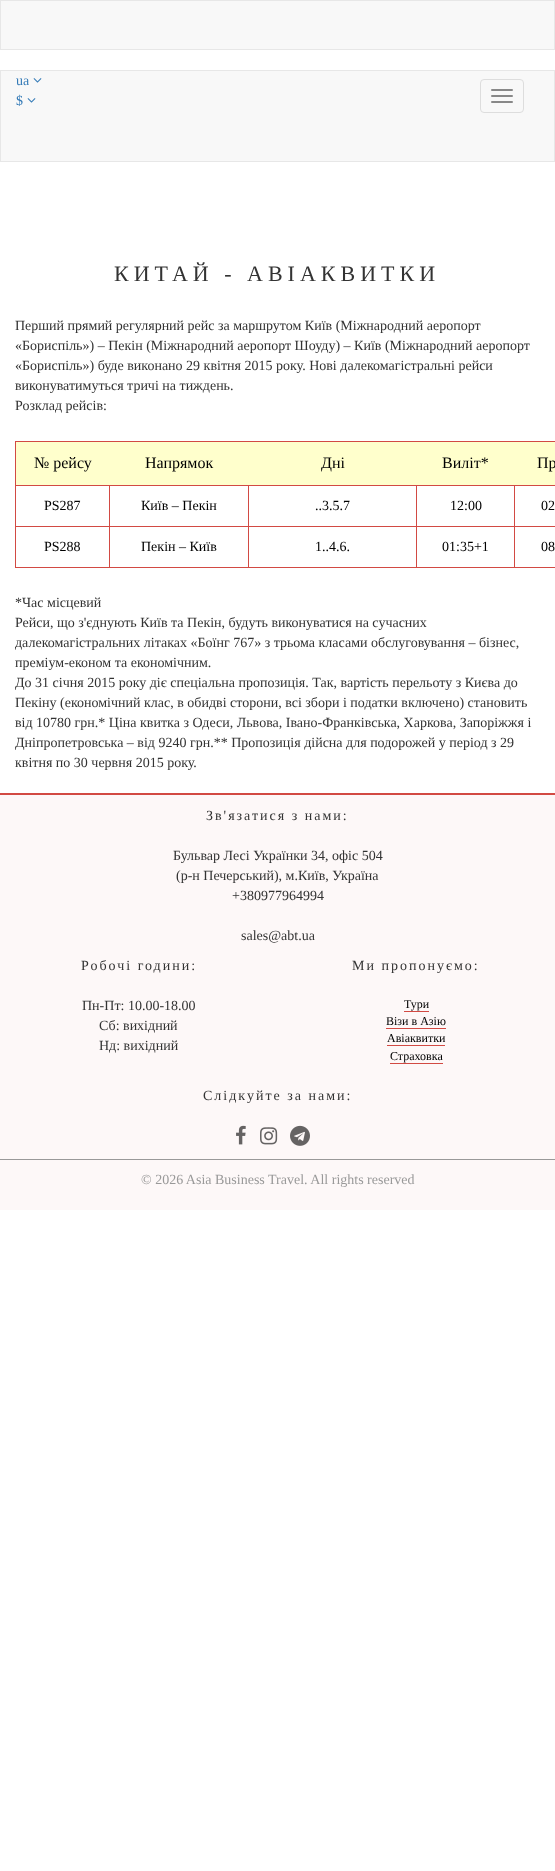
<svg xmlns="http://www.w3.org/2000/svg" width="555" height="1871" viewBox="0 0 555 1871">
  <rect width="100%" height="100%" fill="#ffffff"/>
  <rect x="0.5" y="0.5" width="554" height="49" fill="#f8f8f8" stroke="#e7e7e7"/>
  <rect x="0.5" y="70.5" width="554" height="91" fill="#f8f8f8" stroke="#e7e7e7"/>
  <text x="16" y="85" font-family="Liberation Serif" font-size="14" fill="#337ab7">ua</text>
  <image x="33" y="78" width="9" height="5" href="img1.png"/>
  <rect x="480.5" y="79.5" width="43" height="33" rx="3.5" fill="none" stroke="#dddddd"/>
  <rect x="491" y="89" width="22" height="2" rx="1" fill="#888888"/>
  <rect x="491" y="95" width="22" height="2" rx="1" fill="#888888"/>
  <rect x="491" y="101" width="22" height="2" rx="1" fill="#888888"/>
  <text x="16" y="105" font-family="Liberation Serif" font-size="14" fill="#337ab7">$</text>
  <image x="27" y="98" width="9" height="5" href="img1.png"/>
  <rect x="0" y="793" width="555" height="2" fill="#d24a43"/>
  <text x="114" y="281" font-family="Liberation Serif" font-size="22" letter-spacing="5" fill="#333333">КИТАЙ - АВІАКВИТКИ</text>
  <text x="15" y="330" font-family="Liberation Serif" font-size="14" fill="#333333">Перший прямий регулярний рейс за маршрутом Київ (Міжнародний аеропорт</text>
  <text x="15" y="350" font-family="Liberation Serif" font-size="14" fill="#333333">«Бориспіль») – Пекін (Міжнародний аеропорт Шоуду) – Київ (Міжнародний аеропорт</text>
  <text x="15" y="370" font-family="Liberation Serif" font-size="14" fill="#333333">«Бориспіль») буде виконано 29 квітня 2015 року. Нові далекомагістральні рейси</text>
  <text x="15" y="390" font-family="Liberation Serif" font-size="14" fill="#333333">виконуватимуться тричі на тиждень.</text>
  <text x="15" y="410" font-family="Liberation Serif" font-size="14" fill="#333333">Розклад рейсів:</text>
  <rect x="15" y="441" width="540" height="1" fill="#d24a43"/>
  <rect x="15" y="567" width="540" height="1" fill="#d24a43"/>
  <rect x="15" y="441" width="1" height="127" fill="#d24a43"/>
  <rect x="16" y="442" width="539" height="43" fill="#ffffcc"/>
  <text x="34" y="468" font-family="Liberation Serif" font-size="16" fill="#000000">№ рейсу</text>
  <text x="145" y="468" font-family="Liberation Serif" font-size="16" fill="#000000">Напрямок</text>
  <text x="321" y="468" font-family="Liberation Serif" font-size="16" fill="#000000">Дні</text>
  <text x="442" y="468" font-family="Liberation Serif" font-size="16" fill="#000000">Виліт*</text>
  <text x="537" y="468" font-family="Liberation Serif" font-size="16" fill="#000000">Пр</text>
  <rect x="514" y="485" width="41" height="1" fill="#d24a43"/>
  <rect x="514" y="526" width="41" height="1" fill="#d24a43"/>
  <rect x="514" y="526" width="1" height="42" fill="#d24a43"/>
  <rect x="416" y="526" width="99" height="1" fill="#d24a43"/>
  <rect x="514" y="485" width="1" height="42" fill="#d24a43"/>
  <rect x="416" y="485" width="99" height="1" fill="#d24a43"/>
  <rect x="416" y="526" width="1" height="42" fill="#d24a43"/>
  <rect x="248" y="526" width="169" height="1" fill="#d24a43"/>
  <rect x="416" y="485" width="1" height="42" fill="#d24a43"/>
  <rect x="248" y="485" width="169" height="1" fill="#d24a43"/>
  <rect x="248" y="526" width="1" height="42" fill="#d24a43"/>
  <rect x="109" y="526" width="140" height="1" fill="#d24a43"/>
  <rect x="248" y="485" width="1" height="42" fill="#d24a43"/>
  <rect x="109" y="485" width="140" height="1" fill="#d24a43"/>
  <rect x="109" y="526" width="1" height="42" fill="#d24a43"/>
  <rect x="15" y="526" width="95" height="1" fill="#d24a43"/>
  <rect x="109" y="485" width="1" height="42" fill="#d24a43"/>
  <rect x="15" y="485" width="95" height="1" fill="#d24a43"/>
  <text x="44" y="510" font-family="Liberation Serif" font-size="14" fill="#000000">PS287</text>
  <text x="141" y="510" font-family="Liberation Serif" font-size="14" fill="#000000">Київ – Пекін</text>
  <text x="315" y="510" font-family="Liberation Serif" font-size="14" fill="#000000">..3.5.7</text>
  <text x="450" y="510" font-family="Liberation Serif" font-size="14" fill="#000000">12:00</text>
  <text x="541" y="510" font-family="Liberation Serif" font-size="14" fill="#000000">02</text>
  <text x="44" y="551" font-family="Liberation Serif" font-size="14" fill="#000000">PS288</text>
  <text x="141" y="551" font-family="Liberation Serif" font-size="14" fill="#000000">Пекін – Київ</text>
  <text x="315" y="551" font-family="Liberation Serif" font-size="14" fill="#000000">1..4.6.</text>
  <text x="442" y="551" font-family="Liberation Serif" font-size="14" fill="#000000">01:35+1</text>
  <text x="541" y="551" font-family="Liberation Serif" font-size="14" fill="#000000">08</text>
  <text x="15" y="607" font-family="Liberation Serif" font-size="14" fill="#333333">*Час місцевий</text>
  <text x="15" y="627" font-family="Liberation Serif" font-size="14" fill="#333333">Рейси, що з'єднують Київ та Пекін, будуть виконуватися на сучасних</text>
  <text x="15" y="647" font-family="Liberation Serif" font-size="14" fill="#333333">далекомагістральних літаках «Боїнг 767» з трьома класами обслуговування – бізнес,</text>
  <text x="15" y="667" font-family="Liberation Serif" font-size="14" fill="#333333">преміум-економ та економічним.</text>
  <text x="15" y="687" font-family="Liberation Serif" font-size="14" fill="#333333">До 31 січня 2015 року діє спеціальна пропозиція. Так, вартість перельоту з Києва до</text>
  <text x="15" y="707" font-family="Liberation Serif" font-size="14" fill="#333333">Пекіну (економічний клас, в обидві сторони, всі збори і податки включено) становить</text>
  <text x="15" y="727" font-family="Liberation Serif" font-size="14" fill="#333333">від 10780 грн.* Ціна квитка з Одеси, Львова, Івано-Франківська, Харкова, Запоріжжя і</text>
  <text x="15" y="747" font-family="Liberation Serif" font-size="14" fill="#333333">Дніпропетровська – від 9240 грн.** Пропозиція дійсна для подорожей у період з 29</text>
  <text x="15" y="767" font-family="Liberation Serif" font-size="14" fill="#333333">квітня по 30 червня 2015 року.</text>
  <rect x="0" y="795" width="555" height="415" fill="#fdf8f8"/>
  <text x="206" y="820" font-family="Liberation Serif" font-size="14" letter-spacing="2" fill="#333333">Зв'язатися з нами:</text>
  <text x="173" y="860" font-family="Liberation Serif" font-size="14" fill="#333333">Бульвар Лесі Українки 34, офіс 504</text>
  <text x="176" y="880" font-family="Liberation Serif" font-size="14" fill="#333333">(р-н Печерський), м.Київ, Україна</text>
  <text x="232" y="900" font-family="Liberation Serif" font-size="14" fill="#333333">+380977964994</text>
  <text x="241" y="940" font-family="Liberation Serif" font-size="14" fill="#333333">sales@abt.ua</text>
  <text x="81" y="970" font-family="Liberation Serif" font-size="14" letter-spacing="2" fill="#333333">Робочі години:</text>
  <text x="82" y="1010" font-family="Liberation Serif" font-size="14" fill="#333333">Пн-Пт: 10.00-18.00</text>
  <text x="99" y="1030" font-family="Liberation Serif" font-size="14" fill="#333333">Сб: вихідний</text>
  <text x="99" y="1050" font-family="Liberation Serif" font-size="14" fill="#333333">Нд: вихідний</text>
  <text x="352" y="970" font-family="Liberation Serif" font-size="14" letter-spacing="2" fill="#333333">Ми пропонуємо:</text>
  <text x="404" y="1008" font-family="Liberation Serif" font-size="12" fill="#000000">Тури</text>
  <rect x="404" y="1011" width="25" height="1" fill="#d24a43"/>
  <text x="386" y="1025" font-family="Liberation Serif" font-size="12" fill="#000000">Візи в Азію</text>
  <rect x="386" y="1028" width="60" height="1" fill="#d24a43"/>
  <text x="387" y="1042" font-family="Liberation Serif" font-size="12" fill="#000000">Авіаквитки</text>
  <rect x="387" y="1045" width="58" height="1" fill="#d24a43"/>
  <text x="390" y="1060" font-family="Liberation Serif" font-size="12" fill="#000000">Страховка</text>
  <rect x="390" y="1063" width="53" height="1" fill="#d24a43"/>
  <text x="203" y="1100" font-family="Liberation Serif" font-size="14" letter-spacing="2" fill="#333333">Слідкуйте за нами:</text>
  <image x="236" y="1125" width="10" height="20" href="img2.png"/>
  <image x="260" y="1127" width="18" height="18" href="img3.png"/>
  <image x="290" y="1125" width="20" height="21" href="img4.png"/>
  <rect x="0" y="1159" width="555" height="1" fill="#999999"/>
  <text x="141" y="1184" font-family="Liberation Serif" font-size="14" fill="#999999">© 2026 Asia Business Travel. All rights reserved</text>
</svg>
